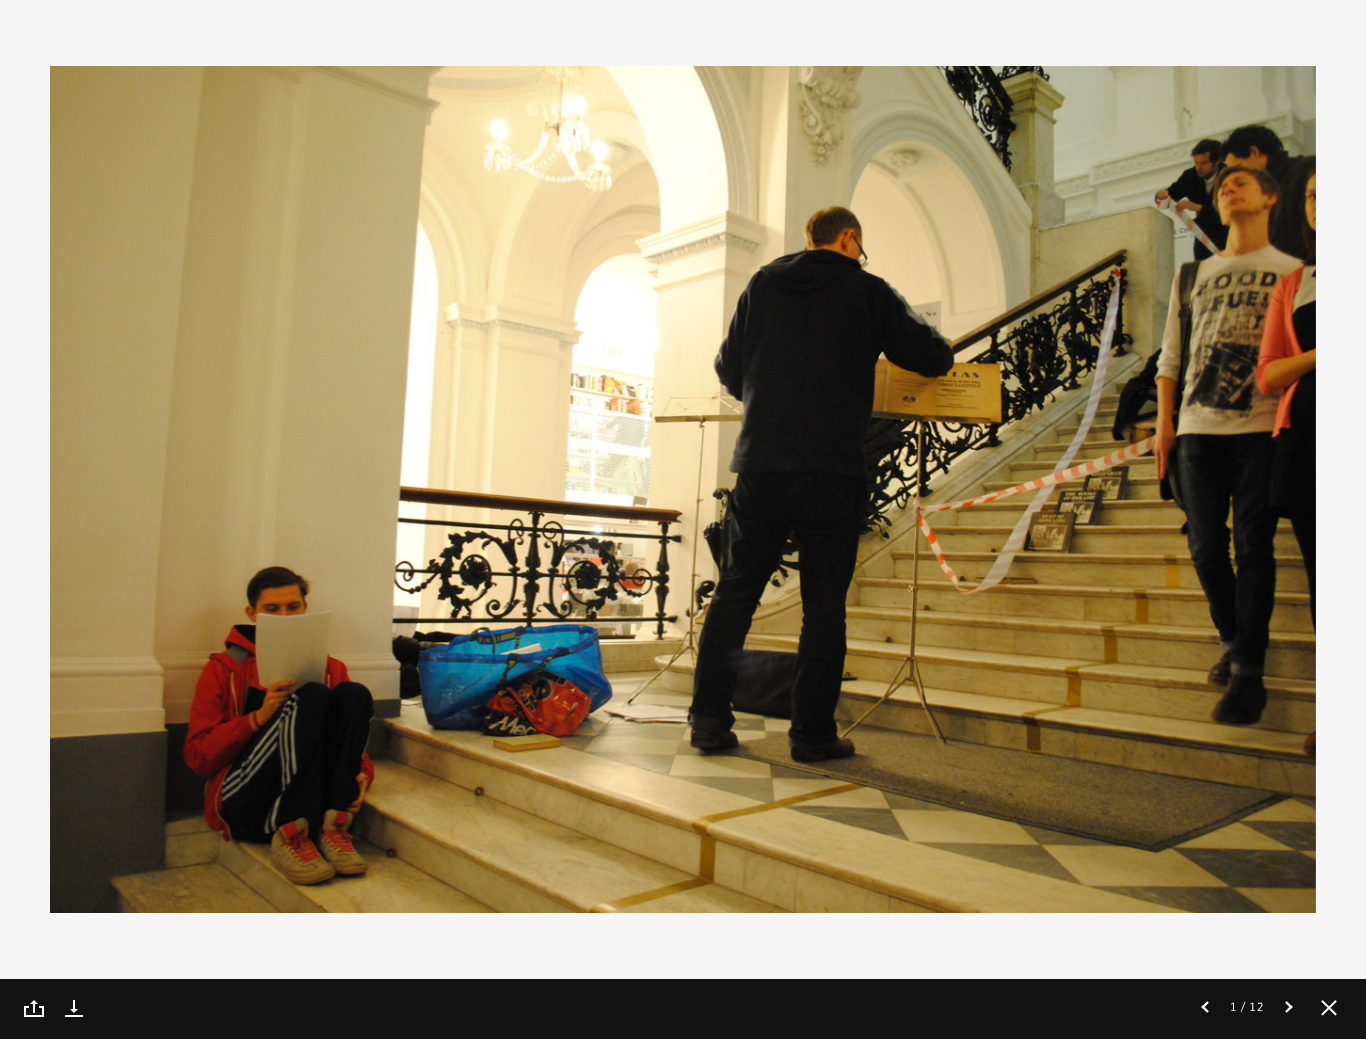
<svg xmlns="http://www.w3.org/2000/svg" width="1366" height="1039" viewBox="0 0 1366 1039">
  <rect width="100%" height="100%" fill="#f5f5f5"/>
  <image x="50" y="66" width="1266" height="847" href="img1.png"/>
  <rect x="0" y="979" width="1366" height="60" fill="#131313"/>
  <image x="24" y="1000" width="20" height="17" href="img2.png"/>
  <image x="65" y="1000" width="18" height="17" href="img3.png"/>
  <path d="M1208 1012L1202 1006M1202 1008L1208 1002" fill="none" stroke="#ffffff" stroke-width="2.4"/>
  <text x="1230" y="1011" font-family="'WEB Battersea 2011'" font-size="12" letter-spacing="0.75" fill="#ffffff">1 / 12</text>
  <path d="M1286 1002L1292 1008M1292 1006L1286 1012" fill="none" stroke="#ffffff" stroke-width="2.4"/>
  <image x="1321" y="1000" width="16" height="16" href="img4.png"/>
</svg>
